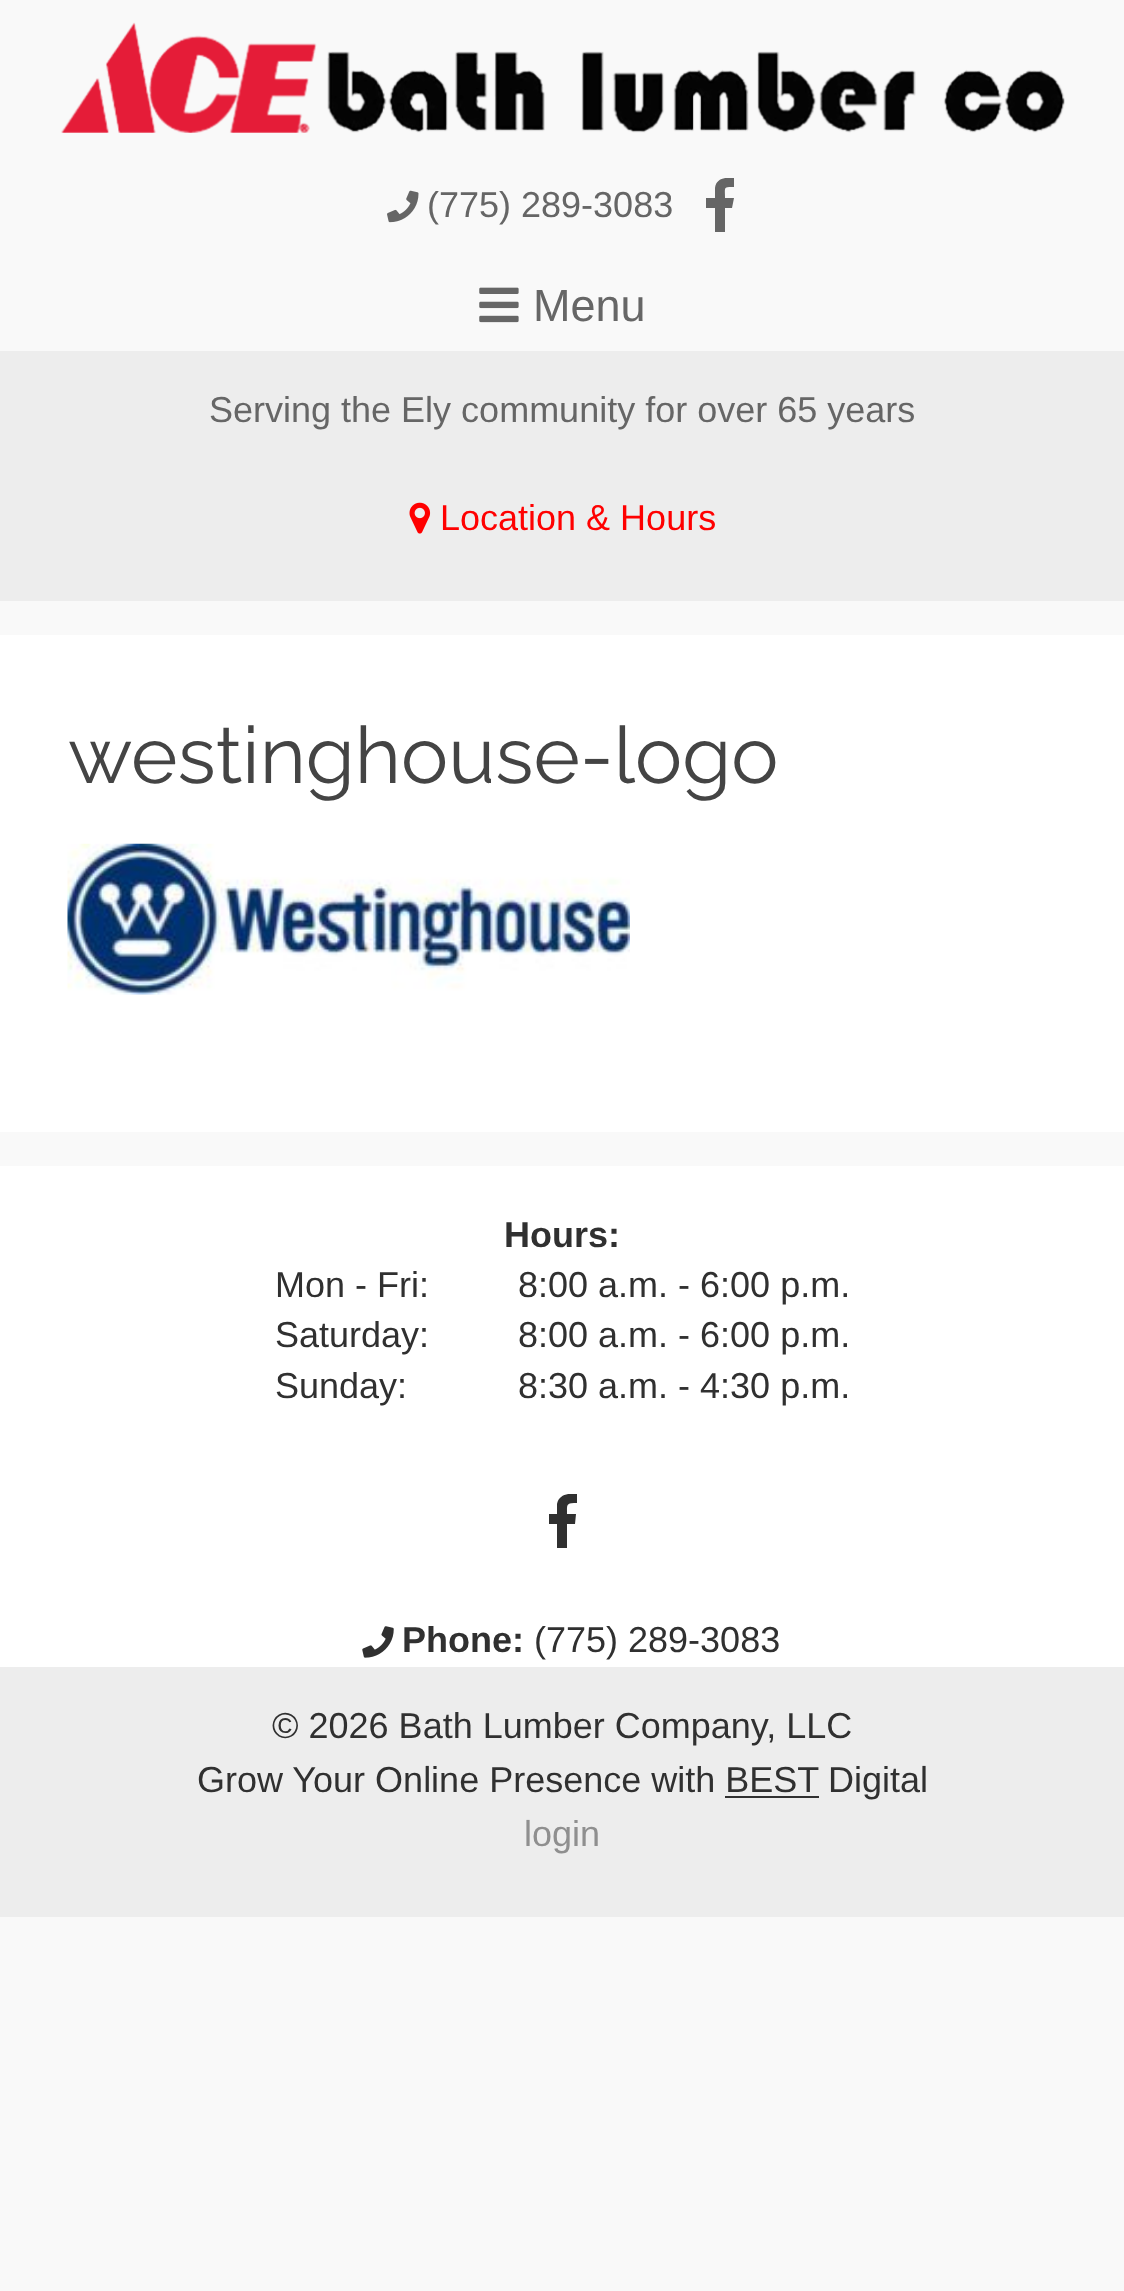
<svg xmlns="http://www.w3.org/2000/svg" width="1124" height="2291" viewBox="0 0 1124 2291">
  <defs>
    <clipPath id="clip1"><rect x="693" y="178" width="54" height="54"/></clipPath>
    <clipPath id="clip2"><rect x="536" y="1494" width="54" height="54"/></clipPath>
  </defs>
  <rect width="100%" height="100%" fill="#f9f9f9"/>
  <image x="61" y="22" width="1004" height="111" href="img1.png"/>
  <image x="387" y="190" width="32" height="33" href="img2.png"/>
  <text x="427" y="217" font-family="Liberation Sans" font-size="36" fill="#666666">(775) 289-3083</text>
  <g clip-path="url(#clip1)">
    <path d="M715 232V208H706V198H715V188C716 178 726 177 734 178V187C723 187 725 187 725 198H734L732 208H725V232Z" fill="#666666"/>
  </g>
  <image x="479" y="287" width="40" height="36" href="img3.png"/>
  <text x="533" y="321" font-family="Liberation Sans" font-size="45" fill="#666666">Menu</text>
  <rect x="0" y="351" width="1124" height="250" fill="#ededed"/>
  <text x="209" y="422" font-family="Liberation Sans" font-size="36" fill="#666666">Serving the Ely community for over 65 years</text>
  <image x="409" y="502" width="22" height="32" href="img4.png"/>
  <text x="440" y="530" font-family="Liberation Sans" font-size="36" fill="#ff0000">Location &amp; Hours</text>
  <rect x="0" y="635" width="1124" height="497" fill="#ffffff"/>
  <text x="68" y="783" font-family="Raleway" font-size="79.25" fill="#444444">westinghouse-logo</text>
  <image x="67" y="843" width="563" height="152" href="img5.png"/>
  <rect x="0" y="1166" width="1124" height="501" fill="#ffffff"/>
  <text x="504" y="1247" font-family="Liberation Sans" font-size="36" font-weight="bold" fill="#303030">Hours:</text>
  <text x="275" y="1297" font-family="Liberation Sans" font-size="36" fill="#303030">Mon - Fri:</text>
  <text x="518" y="1297" font-family="Liberation Sans" font-size="36" fill="#303030">8:00 a.m. - 6:00 p.m.</text>
  <text x="275" y="1347" font-family="Liberation Sans" font-size="36" fill="#303030">Saturday:</text>
  <text x="518" y="1347" font-family="Liberation Sans" font-size="36" fill="#303030">8:00 a.m. - 6:00 p.m.</text>
  <text x="275" y="1398" font-family="Liberation Sans" font-size="36" fill="#303030">Sunday:</text>
  <text x="518" y="1398" font-family="Liberation Sans" font-size="36" fill="#303030">8:30 a.m. - 4:30 p.m.</text>
  <g clip-path="url(#clip2)">
    <path d="M557 1548V1524H549V1514H557V1504C559 1494 569 1493 577 1494V1503C566 1503 567 1504 567 1514H576L575 1524H567V1548Z" fill="#303030"/>
  </g>
  <image x="362" y="1626" width="32" height="32" href="img6.png"/>
  <text x="402" y="1652" font-family="Liberation Sans" font-size="36" font-weight="bold" fill="#303030">Phone:</text>
  <text x="534" y="1652" font-family="Liberation Sans" font-size="36" fill="#303030">(775) 289-3083</text>
  <rect x="0" y="1667" width="1124" height="250" fill="#ededed"/>
  <text x="272" y="1738" font-family="Liberation Sans" font-size="36" fill="#303030">© 2026 Bath Lumber Company, LLC</text>
  <text x="197" y="1792" font-family="Liberation Sans" font-size="36" fill="#303030">Grow Your Online Presence with BEST</text>
  <text x="828" y="1792" font-family="Liberation Sans" font-size="36" fill="#303030">Digital</text>
  <rect x="725" y="1796" width="94" height="2" fill="#303030"/>
  <text x="524" y="1846" font-family="Liberation Sans" font-size="36" fill="#8f8f8f">login</text>
</svg>
